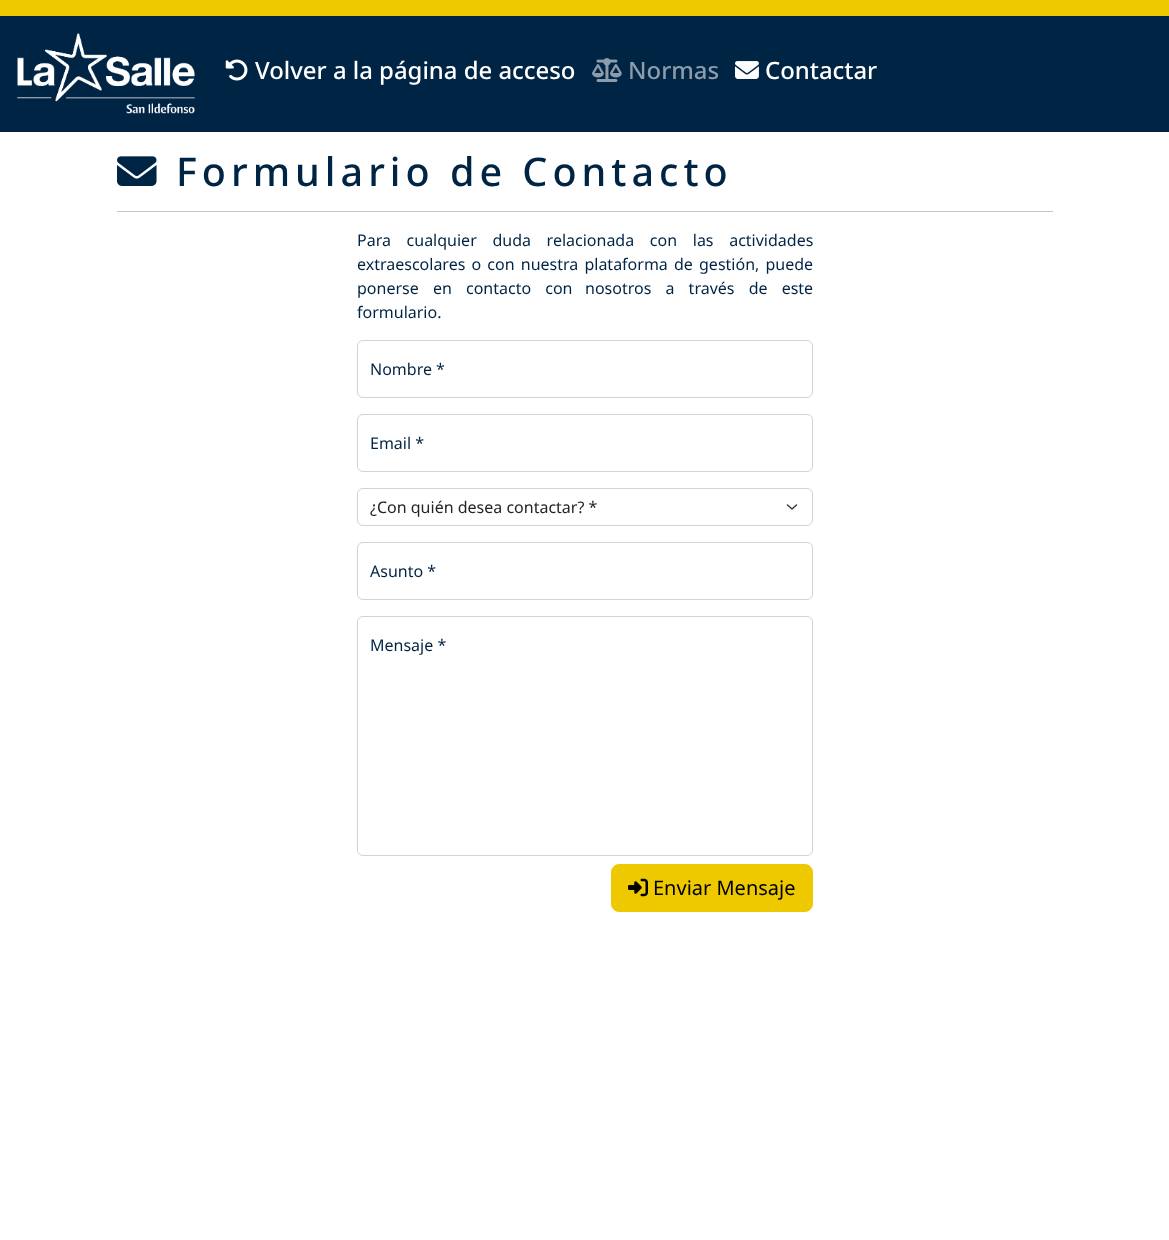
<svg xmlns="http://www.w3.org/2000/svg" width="1169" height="1240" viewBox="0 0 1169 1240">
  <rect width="100%" height="100%" fill="#ffffff"/>
  <rect x="0" y="0" width="1169" height="16" fill="#eec900"/>
  <rect x="0" y="16" width="1169" height="116" fill="#002444"/>
  <image x="17" y="33" width="179" height="81" href="img1.png"/>
  <image x="225" y="59" width="23" height="22" href="img2.png"/>
  <text x="255" y="79" font-family="Noto Sans" font-size="23.9" font-weight="500" fill="#ffffff">Volver a la página de acceso</text>
  <image x="592" y="58" width="30" height="24" href="img3.png"/>
  <text x="628" y="79" font-family="Noto Sans" font-size="23.9" font-weight="500" fill="#8c9cab">Normas</text>
  <image x="735" y="61" width="24" height="18" href="img4.png"/>
  <text x="765" y="79" font-family="Noto Sans" font-size="23.9" font-weight="500" fill="#ffffff">Contactar</text>
  <image x="117" y="156" width="40" height="30" href="img5.png"/>
  <text x="176" y="186" font-family="Noto Sans" font-size="39.5" font-weight="500" letter-spacing="5" fill="#002444">Formulario de Contacto</text>
  <rect x="117" y="211" width="936" height="1" fill="#bfc8d0"/>
  <text x="357" y="246" word-spacing="11.5" font-family="Noto Sans" font-size="16" fill="#002444">Para cualquier duda relacionada con las actividades</text>
  <text x="357" y="270" word-spacing="2" font-family="Noto Sans" font-size="16" fill="#002444">extraescolares o con nuestra plataforma de gestión, puede</text>
  <text x="357" y="294" word-spacing="10" font-family="Noto Sans" font-size="16" fill="#002444">ponerse en contacto con</text>
  <text x="585" y="294" word-spacing="10" font-family="Noto Sans" font-size="16" fill="#002444">nosotros a través de este</text>
  <text x="357" y="318" font-family="Noto Sans" font-size="16" fill="#002444">formulario.</text>
  <rect x="357.5" y="340.5" width="455" height="57" rx="5.5" fill="none" stroke="#ced4da"/>
  <text x="370" y="375" font-family="Noto Sans" font-size="16" fill="#002444">Nombre *</text>
  <rect x="357.5" y="414.5" width="455" height="57" rx="5.5" fill="none" stroke="#ced4da"/>
  <text x="370" y="449" font-family="Noto Sans" font-size="16" fill="#002444">Email *</text>
  <path d="M787.5 505L792 509L796.5 505" fill="none" stroke="#343a40" stroke-width="1.5" stroke-linecap="round" stroke-linejoin="round"/>
  <rect x="357.5" y="488.5" width="455" height="37" rx="5.5" fill="none" stroke="#ced4da"/>
  <text x="370" y="513" font-family="Noto Sans" font-size="16" fill="#212529">¿Con quién desea contactar? *</text>
  <rect x="357.5" y="542.5" width="455" height="57" rx="5.5" fill="none" stroke="#ced4da"/>
  <text x="370" y="577" font-family="Noto Sans" font-size="16" fill="#002444">Asunto *</text>
  <rect x="357.5" y="616.5" width="455" height="239" rx="5.5" fill="none" stroke="#ced4da"/>
  <text x="370" y="651" font-family="Noto Sans" font-size="16" fill="#002444">Mensaje *</text>
  <rect x="611.5" y="864.5" width="201" height="47" rx="7.5" fill="#eec900" stroke="#eec900"/>
  <image x="628" y="878" width="20" height="19" href="img6.png"/>
  <text x="653" y="895" font-family="Noto Sans" font-size="20" fill="#000000">Enviar Mensaje</text>
</svg>
